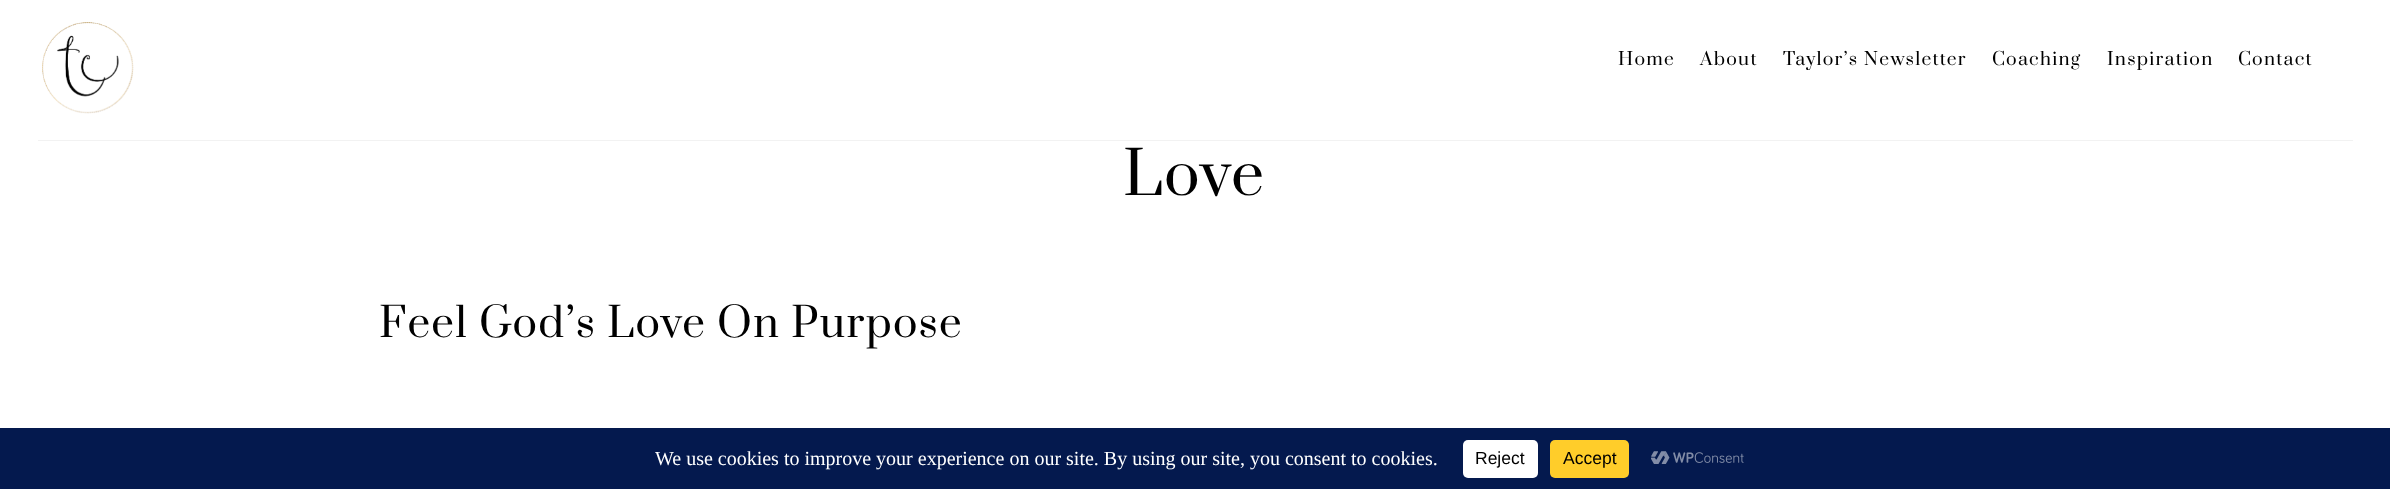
<svg xmlns="http://www.w3.org/2000/svg" width="2390" height="489" viewBox="0 0 2390 489">
  <rect width="100%" height="100%" fill="#ffffff"/>
  <rect x="38" y="140" width="2315" height="1" fill="#f2f2f2"/>
  <image x="42" y="22" width="92" height="92" href="img1.png"/>
  <text x="1618" y="65" font-family="Prata" font-size="17.5" letter-spacing="1.25" fill="#000000">Home</text>
  <text x="1700" y="65" font-family="Prata" font-size="17.5" letter-spacing="1.25" fill="#000000">About</text>
  <text x="1783" y="65" font-family="Prata" font-size="17.5" letter-spacing="1.25" fill="#000000">Taylor’s Newsletter</text>
  <text x="1992" y="65" font-family="Prata" font-size="17.5" letter-spacing="1.25" fill="#000000">Coaching</text>
  <text x="2107" y="65" font-family="Prata" font-size="17.5" letter-spacing="1.25" fill="#000000">Inspiration</text>
  <text x="2238" y="65" font-family="Prata" font-size="17.5" letter-spacing="1.25" fill="#000000">Contact</text>
  <text x="1123" y="195" font-family="Prata" font-size="59" letter-spacing="1.25" fill="#000000">Love</text>
  <text x="379" y="337" font-family="Prata" font-size="40.4" letter-spacing="1.25" fill="#000000">Feel God’s Love On Purpose</text>
  <rect x="0" y="428" width="2390" height="61" fill="#04194e"/>
  <text x="655" y="465" font-family="Liberation Serif" font-size="20" fill="#ffffff">We use cookies to improve your experience on our site. By using our site, you consent to cookies.</text>
  <rect x="1463" y="440" width="75" height="38" rx="5" fill="#ffffff"/>
  <text x="1475" y="464" font-family="Liberation Sans" font-size="17.5" fill="#000000">Reject</text>
  <rect x="1550" y="440" width="79" height="38" rx="5" fill="#ffcd2a"/>
  <text x="1563" y="464" font-family="Liberation Sans" font-size="17.5" fill="#000000">Accept</text>
  <image x="1651" y="451" width="93" height="13" href="img2.png"/>
</svg>
